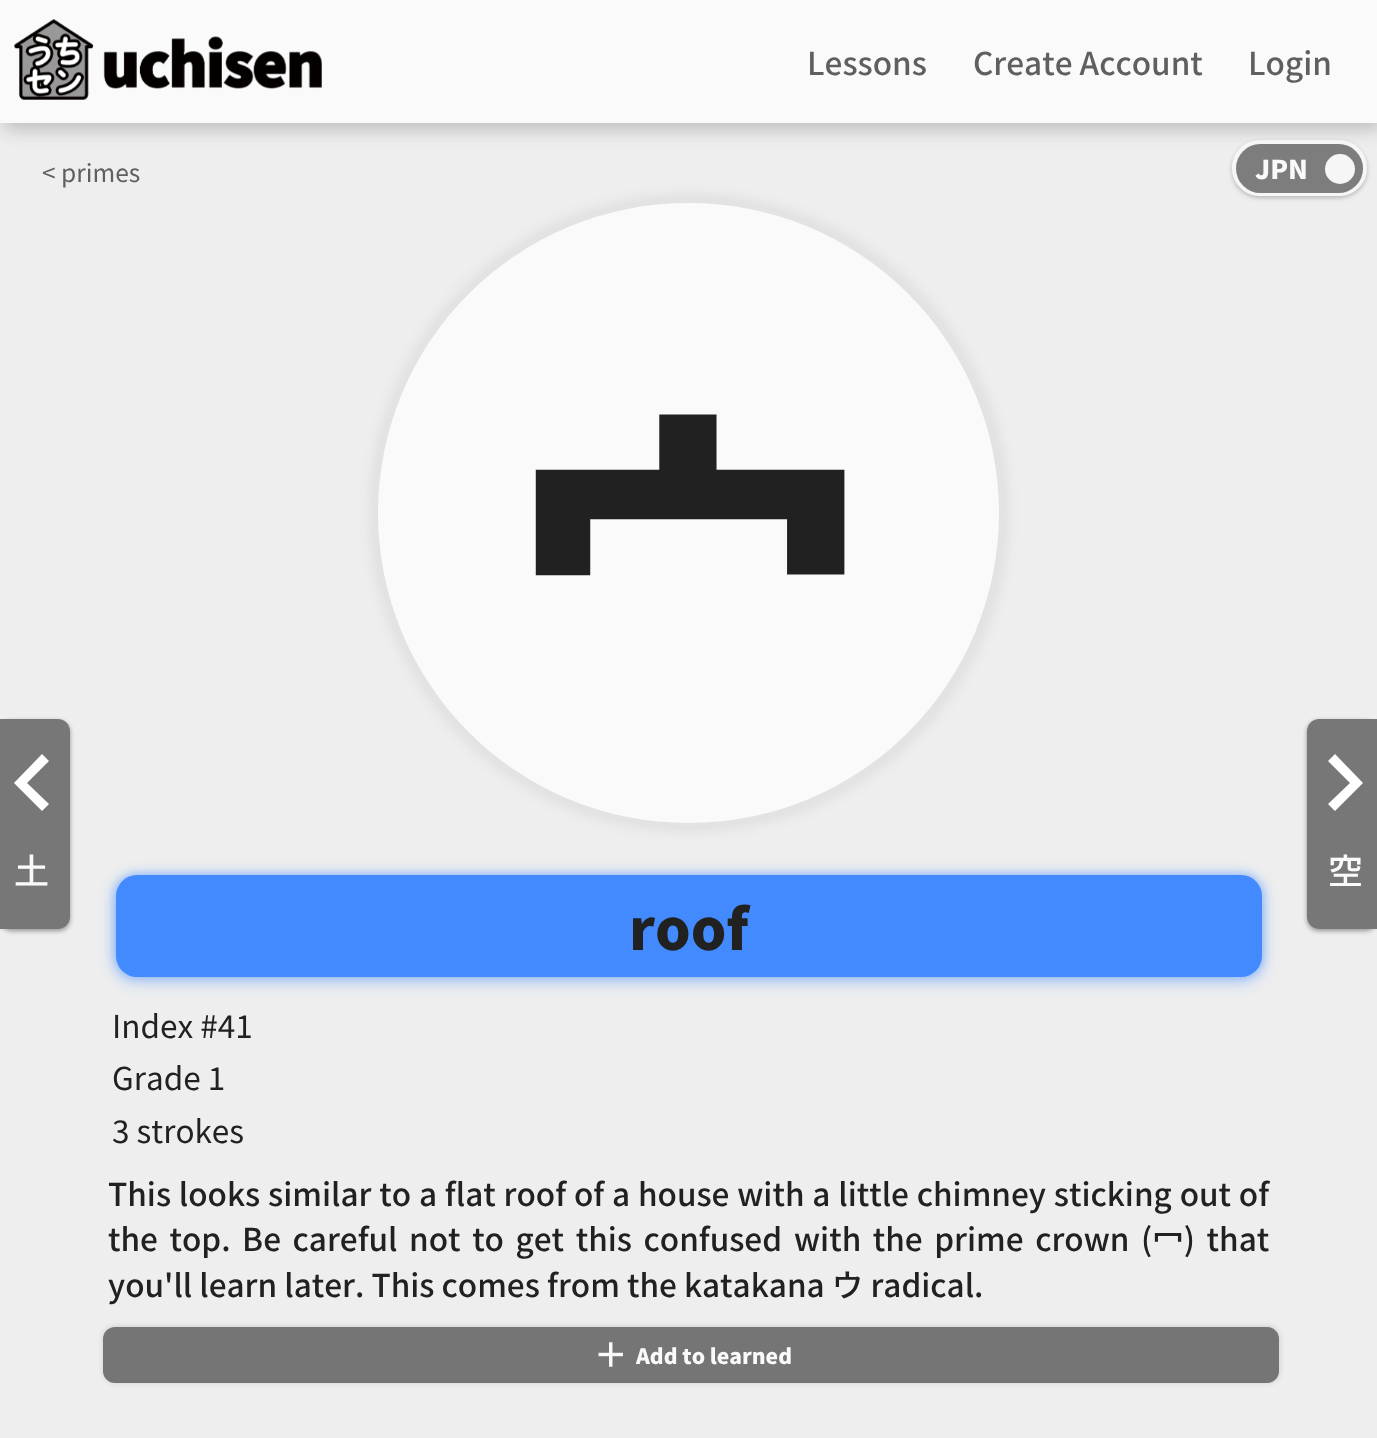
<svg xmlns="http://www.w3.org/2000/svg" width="1377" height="1438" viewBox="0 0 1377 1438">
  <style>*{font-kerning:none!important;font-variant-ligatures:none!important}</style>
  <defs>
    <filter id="blur1" x="-50%" y="-200%" width="200%" height="500%"><feGaussianBlur stdDeviation="9"/></filter>
    <clipPath id="clip1"><path d="M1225 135H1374V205H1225ZM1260 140H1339C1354.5 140 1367 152.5 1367 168C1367 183.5 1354.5 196 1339 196H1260C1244.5 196 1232 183.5 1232 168C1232 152.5 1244.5 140 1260 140Z" clip-rule="evenodd"/></clipPath>
    <filter id="blur2" x="-50%" y="-200%" width="200%" height="500%"><feGaussianBlur stdDeviation="2"/></filter>
    <clipPath id="clip2"><path d="M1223 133H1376V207H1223ZM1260 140H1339C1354.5 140 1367 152.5 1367 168C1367 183.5 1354.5 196 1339 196H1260C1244.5 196 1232 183.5 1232 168C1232 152.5 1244.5 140 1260 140Z" clip-rule="evenodd"/></clipPath>
    <filter id="blur3" x="-50%" y="-200%" width="200%" height="500%"><feGaussianBlur stdDeviation="2.5"/></filter>
    <clipPath id="clip3"><path d="M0 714H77V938H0ZM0 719H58C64.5 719 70 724.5 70 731V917C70 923.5 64.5 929 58 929H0Z" clip-rule="evenodd"/></clipPath>
    <clipPath id="clip4"><path d="M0 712H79V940H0ZM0 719H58C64.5 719 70 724.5 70 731V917C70 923.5 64.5 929 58 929H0Z" clip-rule="evenodd"/></clipPath>
    <filter id="blur4" x="-50%" y="-200%" width="200%" height="500%"><feGaussianBlur stdDeviation="5"/></filter>
    <filter id="blur5" x="-50%" y="-200%" width="200%" height="500%"><feGaussianBlur stdDeviation="4.5"/></filter>
    <filter id="blur6" x="-50%" y="-200%" width="200%" height="500%"><feGaussianBlur stdDeviation="7"/></filter>
    <clipPath id="clip5"><path d="M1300 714H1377V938H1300ZM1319 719H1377V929H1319C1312.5 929 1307 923.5 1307 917V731C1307 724.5 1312.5 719 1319 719Z" clip-rule="evenodd"/></clipPath>
    <clipPath id="clip6"><path d="M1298 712H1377V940H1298ZM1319 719H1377V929H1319C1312.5 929 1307 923.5 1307 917V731C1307 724.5 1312.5 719 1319 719Z" clip-rule="evenodd"/></clipPath>
  </defs>
  <rect width="100%" height="100%" fill="#eeeeee"/>
  <rect x="4" y="7" width="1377" height="123" fill="#000000" fill-opacity="0.2" filter="url(#blur1)"/>
  <rect x="0" y="0" width="1377" height="123" fill="#fafafa"/>
  <image x="14" y="19" width="308" height="81" href="img1.png"/>
  <text x="807" y="75" font-family="Noto Sans JP" font-size="31.5" font-weight="500" fill="#5f5f5f">Lessons</text>
  <text x="973" y="75" font-family="Noto Sans JP" font-size="31.5" font-weight="500" fill="#5f5f5f">Create Account</text>
  <text x="1248" y="75" font-family="Noto Sans JP" font-size="31.5" font-weight="500" fill="#5f5f5f">Login</text>
  <g clip-path="url(#clip1)">
    <rect x="1232" y="142" width="135" height="56" rx="28" fill="#000000" fill-opacity="0.17" filter="url(#blur2)"/>
  </g>
  <g clip-path="url(#clip2)">
    <rect x="1232" y="142" width="135" height="56" rx="28" fill="#000000" fill-opacity="0.08" filter="url(#blur3)"/>
  </g>
  <rect x="1234" y="142" width="131" height="52" rx="26" fill="none" stroke="#fafafa" stroke-opacity="0.7" stroke-width="4"/>
  <rect x="1236" y="144" width="127" height="49" rx="24.5" fill="#4d4d4d" fill-opacity="0.7"/>
  <text x="1255" y="179" font-family="Noto Sans JP" font-size="26" font-weight="900" fill="#fafafa">JPN</text>
  <circle cx="1340" cy="169" r="13" fill="#f6f6f6" stroke="#f6f6f6" stroke-width="4"/>
  <g clip-path="url(#clip3)">
    <rect x="0" y="721" width="70" height="210" rx="12" fill="#000000" fill-opacity="0.18" filter="url(#blur2)"/>
  </g>
  <g clip-path="url(#clip4)">
    <rect x="0" y="721" width="70" height="210" rx="12" fill="#000000" fill-opacity="0.22" filter="url(#blur3)"/>
  </g>
  <path d="M0 719H58C64.5 719 70 724.5 70 731V917C70 923.5 64.5 929 58 929H0Z" fill="#000000" fill-opacity="0.5"/>
  <path d="M49 761L42 754L14 783L42 811L49 804L27 783Z" fill="#ffffff"/>
  <text x="14" y="884" font-family="Noto Sans JP" font-size="35" font-weight="500" fill="#fafafa">土</text>
  <text x="42" y="182" font-family="Noto Sans JP" font-size="24.5" fill="#5f5f5f">&lt; primes</text>
  <rect x="368" y="193" width="642" height="640" rx="320" fill="#808080" fill-opacity="0.11" filter="url(#blur4)"/>
  <rect x="378" y="203" width="621" height="620" rx="310" fill="#fafafa"/>
  <text x="510" y="669" font-family="Noto Sans JP" font-size="358" font-weight="900" fill="#212121">宀</text>
  <rect x="114" y="873" width="1150" height="105" rx="23" fill="#448aff" fill-opacity="0.39" filter="url(#blur5)"/>
  <rect x="112" y="875" width="1153" height="109" rx="25" fill="#448aff" fill-opacity="0.29" filter="url(#blur6)"/>
  <rect x="116" y="875" width="1146" height="102" rx="21" fill="#448aff"/>
  <text x="629" y="950" font-family="Noto Sans JP" font-size="56" font-weight="900" fill="#212121">roof</text>
  <text x="112" y="1038" font-family="Noto Sans JP" font-size="31.5" fill="#212121">Index #41</text>
  <text x="112" y="1090" font-family="Noto Sans JP" font-size="31.5" fill="#212121">Grade 1</text>
  <text x="112" y="1143" font-family="Noto Sans JP" font-size="31.5" fill="#212121">3 strokes</text>
  <text x="108" y="1206" word-spacing="0.75" font-family="Noto Sans JP" font-size="31.5" font-weight="500" fill="#212121">This looks similar to a flat roof of a house with a little chimney sticking out of</text>
  <text x="108" y="1251" word-spacing="4.5" font-family="Noto Sans JP" font-size="31.5" font-weight="500" fill="#212121">the top. Be careful not to get this confused</text>
  <text x="794" y="1251" word-spacing="4.5" font-family="Noto Sans JP" font-size="31.5" font-weight="500" fill="#212121">with the prime crown (冖) that</text>
  <text x="108" y="1297" font-family="Noto Sans JP" font-size="31.5" font-weight="500" fill="#212121">you'll learn later. This comes</text>
  <text x="547" y="1297" font-family="Noto Sans JP" font-size="31.5" font-weight="500" fill="#212121">from the katakana ウ radical.</text>
  <rect x="102" y="1325" width="1179" height="59" rx="14" fill="#000000" fill-opacity="0.09" filter="url(#blur2)"/>
  <rect x="103" y="1327" width="1176" height="56" rx="12" fill="#757575"/>
  <image x="598" y="1342" width="25" height="25" href="img2.png"/>
  <text x="636" y="1364" font-family="Noto Sans JP" font-size="21" font-weight="900" fill="#fafafa">Add to learned</text>
  <g clip-path="url(#clip5)">
    <rect x="1307" y="721" width="70" height="210" rx="12" fill="#000000" fill-opacity="0.18" filter="url(#blur2)"/>
  </g>
  <g clip-path="url(#clip6)">
    <rect x="1307" y="721" width="70" height="210" rx="12" fill="#000000" fill-opacity="0.22" filter="url(#blur3)"/>
  </g>
  <path d="M1319 719H1377V929H1319C1312.5 929 1307 923.5 1307 917V731C1307 724.5 1312.5 719 1319 719Z" fill="#000000" fill-opacity="0.5"/>
  <path d="M1335 754L1328 761L1350 783L1328 804L1335 811L1363 783Z" fill="#ffffff"/>
  <text x="1328" y="884" font-family="Noto Sans JP" font-size="35" font-weight="500" fill="#fafafa">空</text>
</svg>
